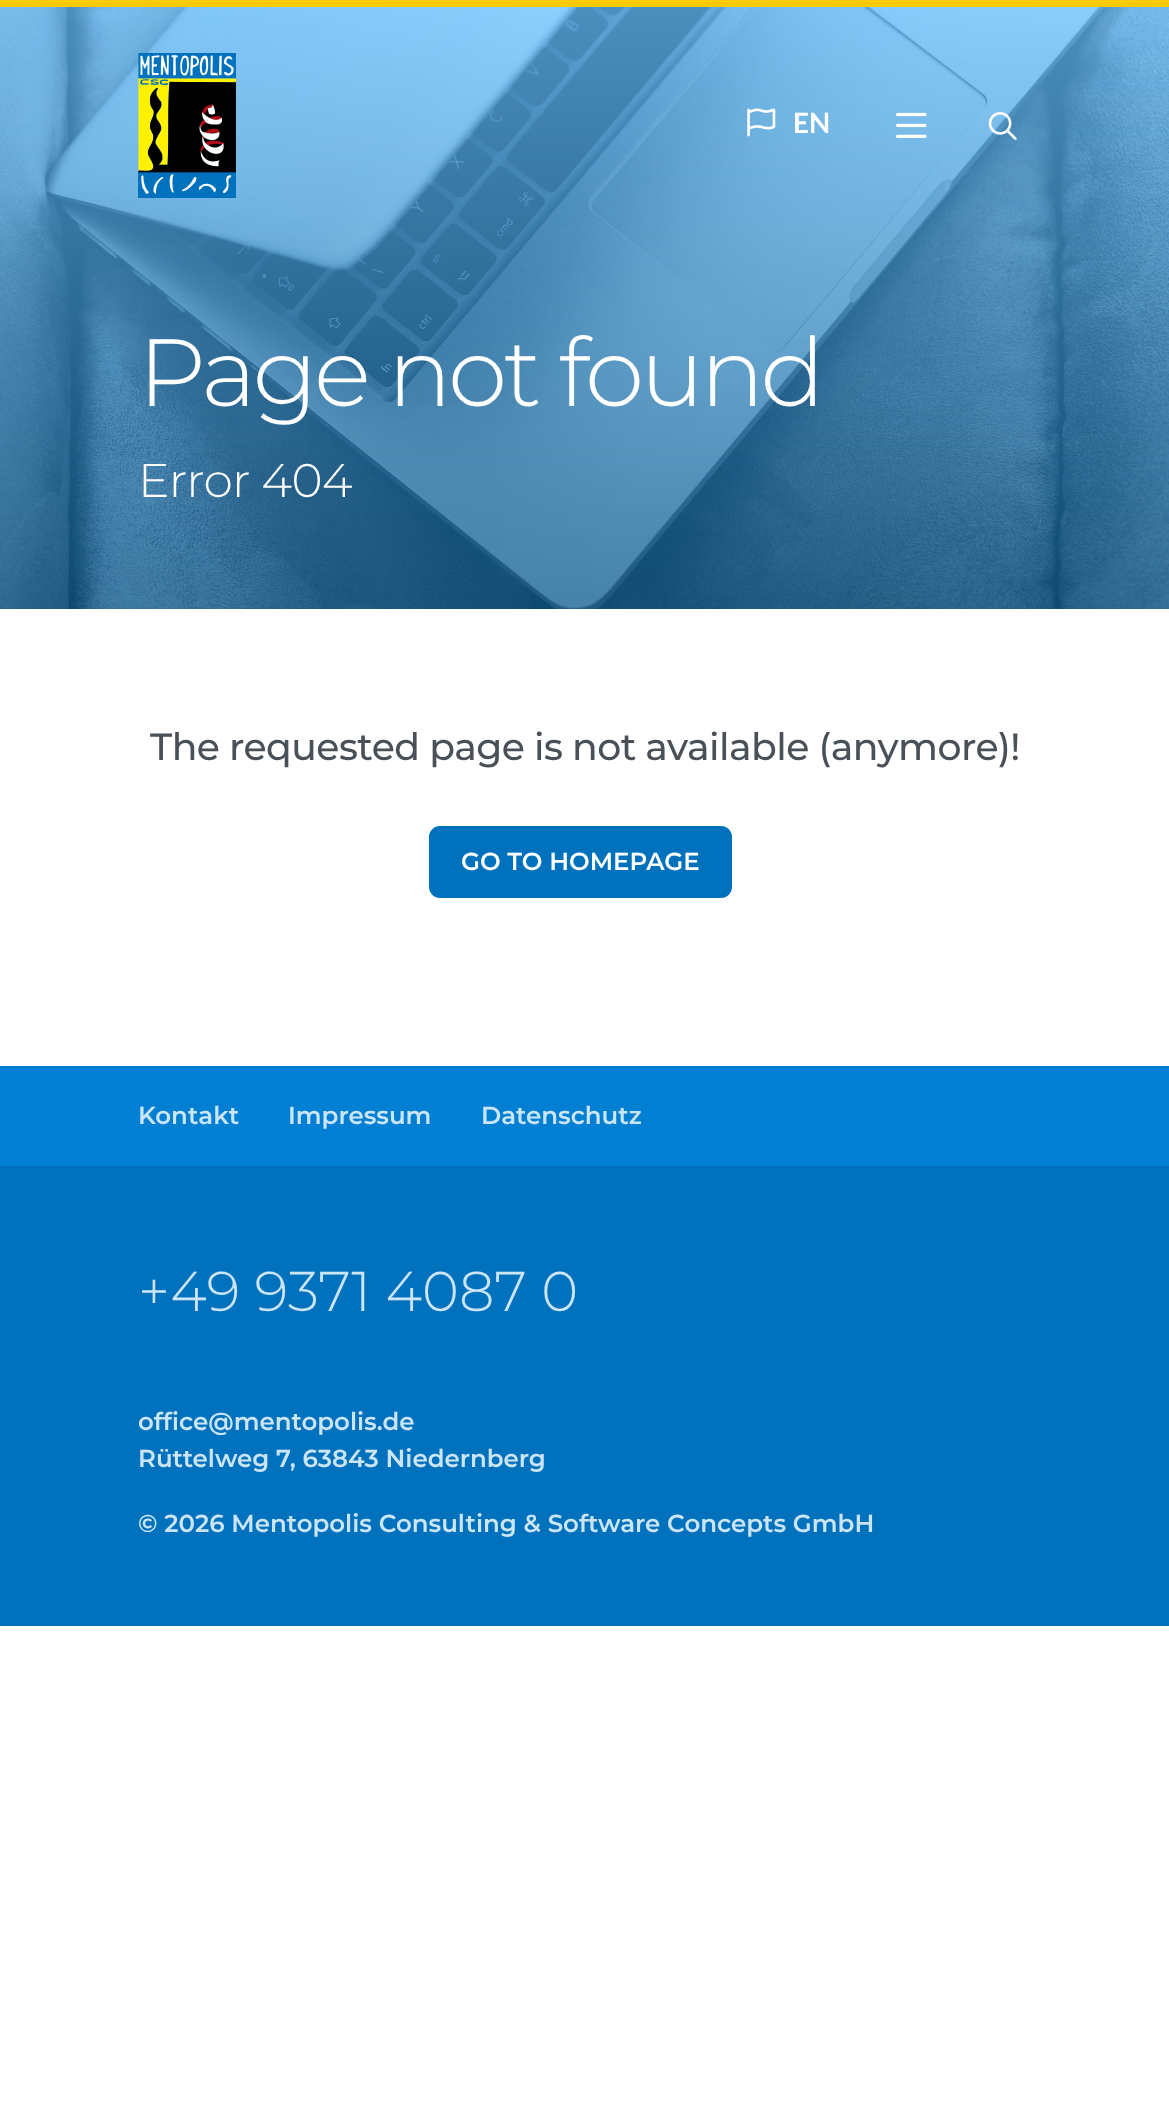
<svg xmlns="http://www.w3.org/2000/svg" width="1169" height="2108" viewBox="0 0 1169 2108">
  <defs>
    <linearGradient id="g1" gradientUnits="userSpaceOnUse" x1="585" y1="0" x2="585" y2="609"><stop offset="0" stop-color="#5abcff"/><stop offset="1" stop-color="#00558d"/></linearGradient>
  </defs>
  <rect width="100%" height="100%" fill="#ffffff"/>
  <rect x="0" y="0" width="1169" height="7" fill="#ffcb05"/>
  <rect x="0" y="7" width="1169" height="602" fill="url(#g1)"/>
  <image x="0" y="7" width="1169" height="602" href="img1.png"/>
  <image x="138" y="53" width="98" height="145" href="img2.png"/>
  <image x="747" y="108" width="29" height="29" href="img3.png"/>
  <text x="793" y="133" font-family="Lato" font-size="28" font-weight="bold" fill="#ffffff">EN</text>
  <image x="896" y="112" width="31" height="26" href="img4.png"/>
  <image x="988" y="112" width="29" height="28" href="img5.png"/>
  <text x="138" y="406" font-family="'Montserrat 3'" font-size="95.25" font-weight="100" letter-spacing="-3.75" fill="#ffffff">Page not found</text>
  <text x="138" y="497" font-family="'Montserrat 3'" font-size="47.25" font-weight="100" letter-spacing="-0.75" fill="#ffffff">Error 404</text>
  <text x="150" y="760" font-family="Montserrat" font-size="37.8" font-weight="100" letter-spacing="-0.55" fill="#495057">The requested page is not available (anymore)!</text>
  <rect x="431" y="828" width="299" height="68" rx="9" fill="#0071bc" stroke="#0071bc" stroke-width="4"/>
  <text x="461" y="870" font-family="'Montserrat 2'" font-size="24.5" font-weight="100" fill="#ffffff">GO TO HOMEPAGE</text>
  <rect x="0" y="1066" width="1169" height="100" fill="#007fd3"/>
  <text x="138" y="1124" font-family="'Montserrat 2'" font-size="24.5" font-weight="100" fill="#cce5f6">Kontakt</text>
  <text x="288" y="1124" font-family="'Montserrat 2'" font-size="24.5" font-weight="100" fill="#cce5f6">Impressum</text>
  <text x="481" y="1124" font-family="'Montserrat 2'" font-size="24.5" font-weight="100" fill="#cce5f6">Datenschutz</text>
  <rect x="0" y="1166" width="1169" height="460" fill="#0071bc"/>
  <text x="138" y="1311" font-family="'Montserrat 3'" font-size="56" font-weight="100" fill="#cce5f6">+49 9371 4087 0</text>
  <text x="138" y="1430" font-family="'Montserrat 2'" font-size="24.5" font-weight="100" fill="#cce5f6">office@mentopolis.de</text>
  <text x="138" y="1467" font-family="'Montserrat 2'" font-size="24.5" font-weight="100" fill="#cce5f6">Rüttelweg 7, 63843 Niedernberg</text>
  <text x="138" y="1532" font-family="'Montserrat 2'" font-size="24.5" font-weight="100" fill="#cce5f6">© 2026 Mentopolis Consulting &amp; Software Concepts GmbH</text>
</svg>
